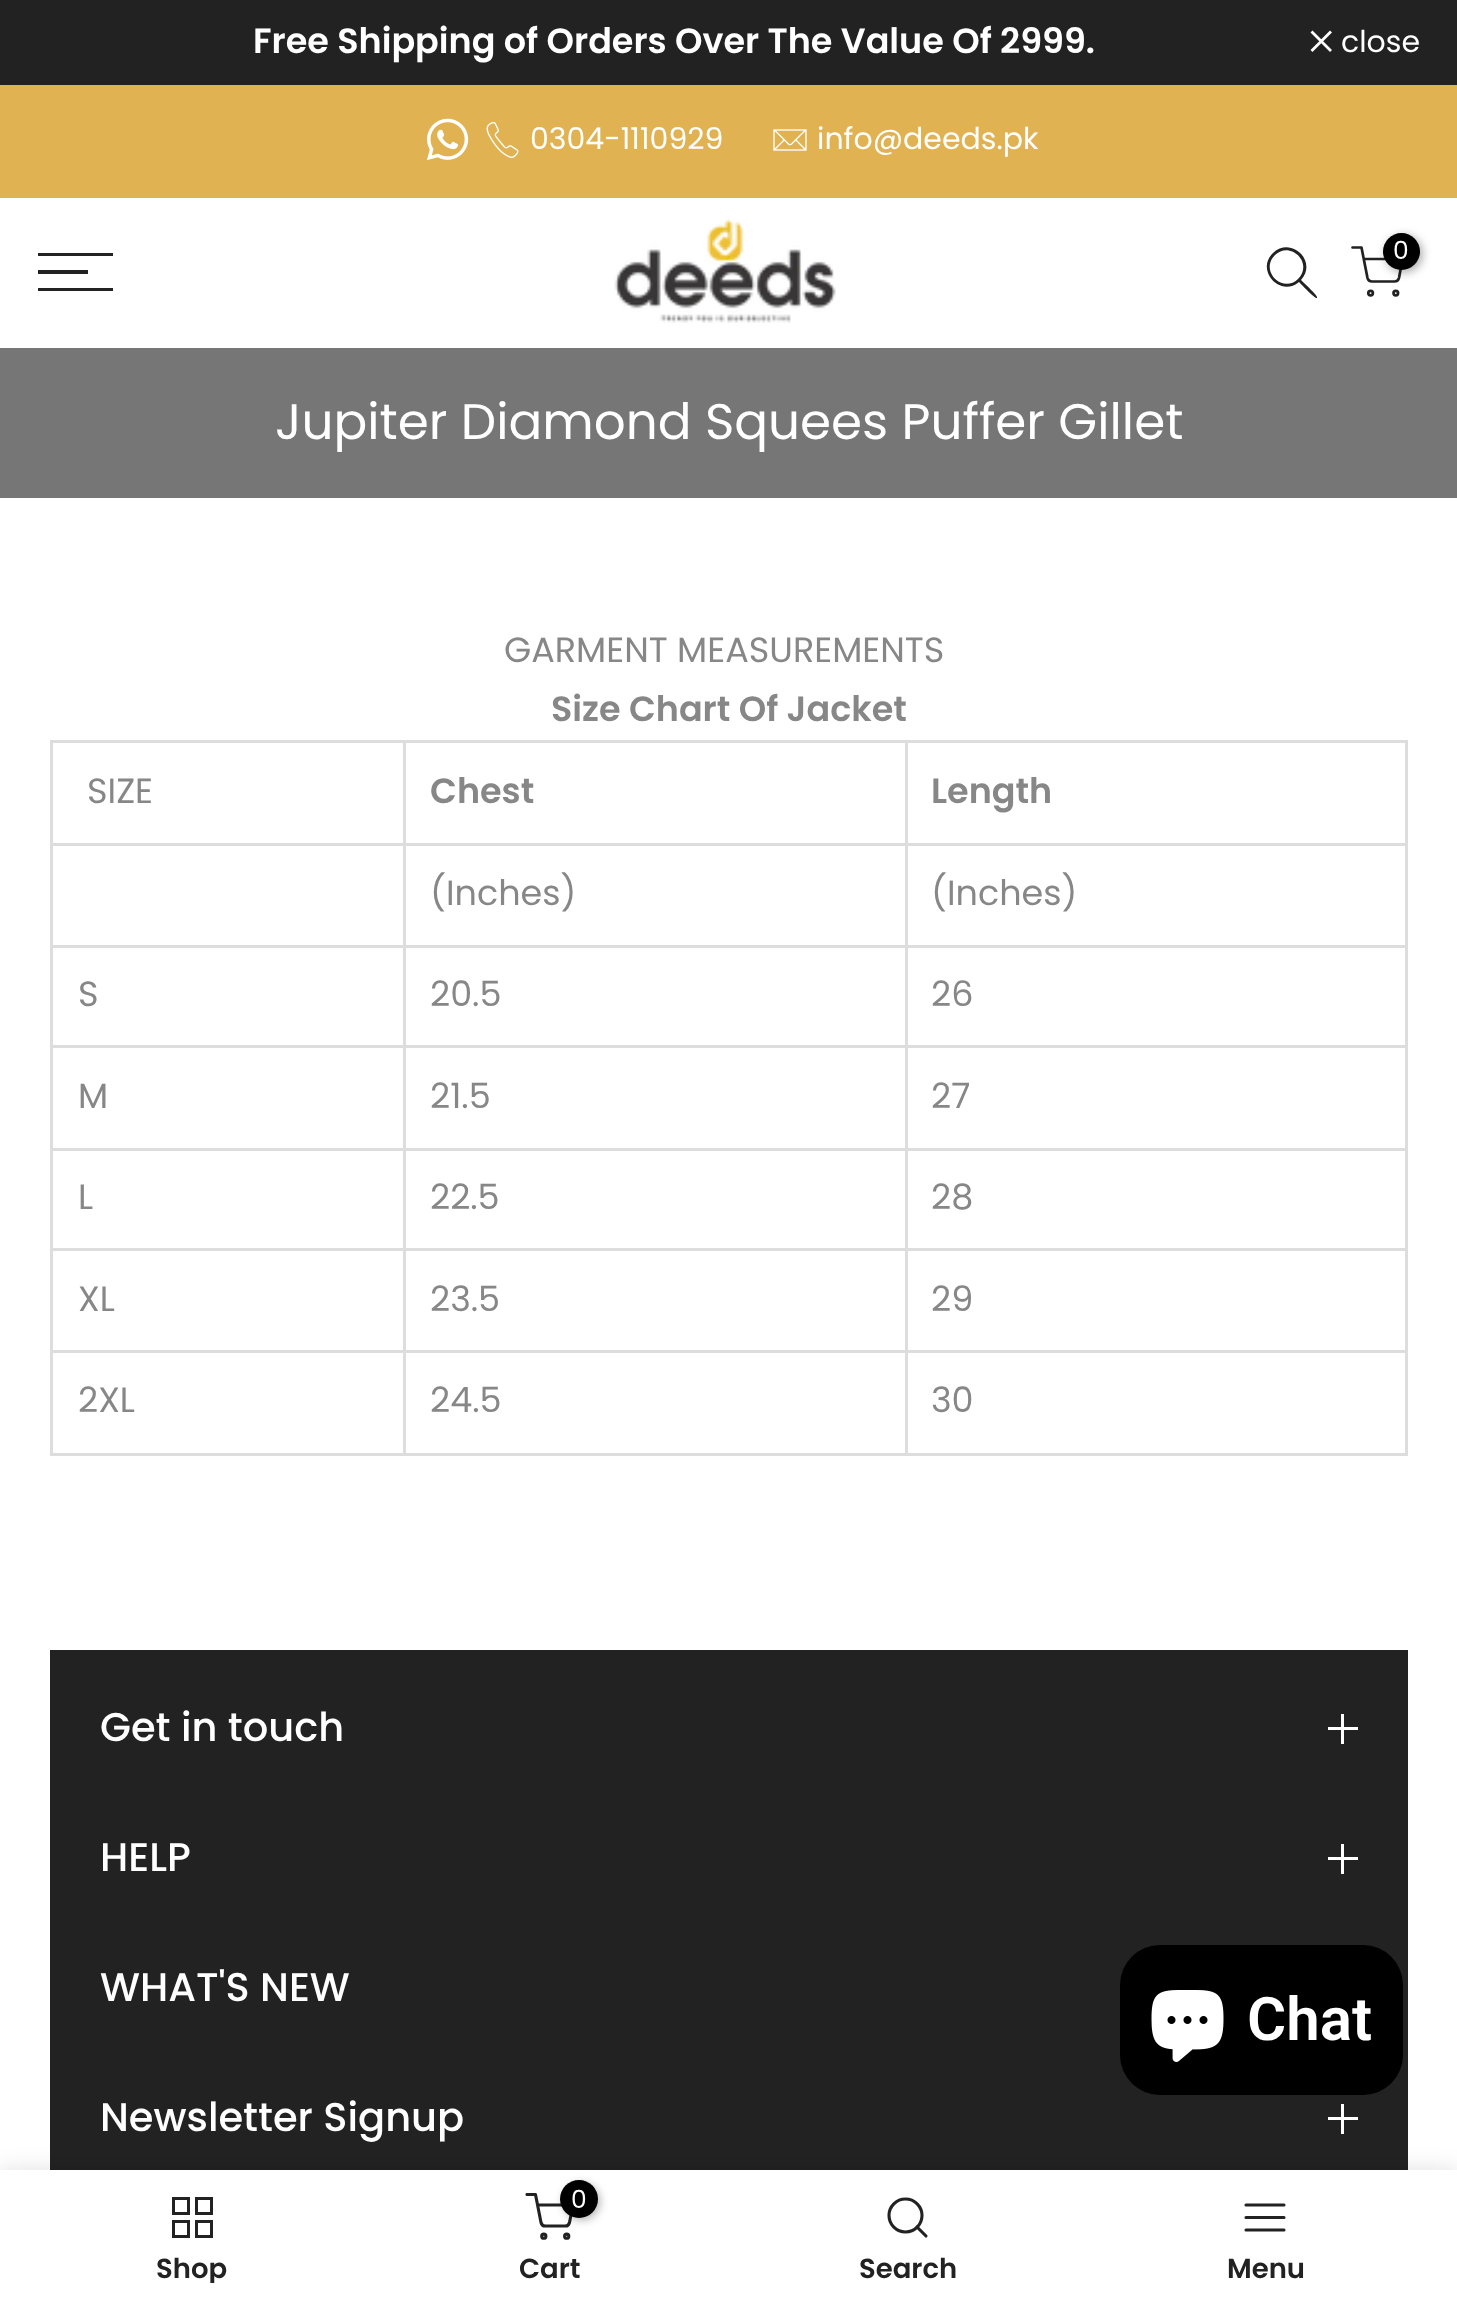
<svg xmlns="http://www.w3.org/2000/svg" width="1457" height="2306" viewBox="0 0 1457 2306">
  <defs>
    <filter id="blur1" x="-50%" y="-200%" width="200%" height="500%"><feGaussianBlur stdDeviation="4"/></filter>
    <filter id="blur2" x="-50%" y="-200%" width="200%" height="500%"><feGaussianBlur stdDeviation="11"/></filter>
    <clipPath id="clip1"><rect x="38" y="2255" width="307" height="28"/></clipPath>
    <clipPath id="clip2"><rect x="525" y="2193" width="50" height="50"/></clipPath>
  </defs>
  <rect width="100%" height="100%" fill="#ffffff"/>
  <rect x="0" y="0" width="1457" height="85" fill="#222222"/>
  <text x="253" y="53" font-family="Poppins" font-size="35" font-weight="600" fill="#ffffff">Free Shipping of Orders Over The Value Of 2999.</text>
  <path d="M1331 31.5L1311.5 51M1331 51L1311.5 31.5" fill="none" stroke="#ffffff" stroke-width="2.8"/>
  <text x="1341" y="52" font-family="Poppins" font-size="30" fill="#ffffff">close</text>
  <rect x="0" y="85" width="1457" height="113" fill="#e0b252"/>
  <image x="427" y="118" width="42" height="43" href="img1.png"/>
  <image x="486" y="122" width="33" height="36" href="img2.png"/>
  <text x="530" y="149" font-family="Poppins" font-size="30" fill="#ffffff">0304-1110929</text>
  <image x="773" y="129" width="34" height="22" href="img3.png"/>
  <text x="817" y="149" font-family="Poppins" font-size="30" fill="#ffffff">info@deeds.pk</text>
  <image x="614" y="219" width="222" height="104" href="img4.png"/>
  <path d="M1298 279C1283 294 1259 271 1275 255C1290 240 1314 263 1298 279ZM1299 282C1280 298 1255 270 1273 253C1291 236 1318 261 1301 280C1303 282 1317 295 1317 297V298C1315 299 1301 284 1299 282Z" fill="#222222" fill-rule="evenodd"/>
  <path d="M1352.5 247.5H1361.5L1367.5 278C1368 280 1370 281.5 1372 281.5H1394.5C1396.5 281.5 1398.5 280 1399 278L1402.5 259H1364" fill="none" stroke="#222222" stroke-width="2.7" stroke-linecap="round" stroke-linejoin="round"/>
  <rect x="1385" y="235" width="38" height="38" rx="19" fill="#000000" fill-opacity="0.3" filter="url(#blur1)"/>
  <circle cx="1401.5" cy="251.5" r="18.5" fill="#000000"/>
  <text x="1393" y="259" font-family="Poppins" font-size="25" fill="#ffffff">0</text>
  <circle cx="1370.6" cy="293.1" r="2.3" fill="none" stroke="#222222" stroke-width="2.7"/>
  <circle cx="1395.8" cy="293.1" r="2.3" fill="none" stroke="#222222" stroke-width="2.7"/>
  <rect x="38" y="253" width="75" height="3" fill="#222222"/>
  <rect x="38" y="270" width="50" height="4" fill="#222222"/>
  <rect x="38" y="288" width="75" height="3" fill="#222222"/>
  <rect x="0" y="348" width="1457" height="150" fill="#767676"/>
  <text x="275" y="439" font-family="Poppins" font-size="50" fill="#ffffff">Jupiter Diamond Squees Puffer Gillet</text>
  <text x="504" y="662" font-family="Poppins" font-size="35" fill="#878787">GARMENT MEASUREMENTS</text>
  <text x="551" y="721" font-family="Poppins" font-size="35" font-weight="600" fill="#878787">Size Chart Of Jacket</text>
  <rect x="50" y="740" width="1358" height="3" fill="#dddddd"/>
  <rect x="1405" y="740" width="3" height="715" fill="#dddddd"/>
  <rect x="50" y="1453" width="1358" height="3" fill="#dddddd"/>
  <rect x="50" y="740" width="3" height="715" fill="#dddddd"/>
  <rect x="905" y="1350" width="3" height="105" fill="#dddddd"/>
  <rect x="905" y="1350" width="503" height="3" fill="#dddddd"/>
  <rect x="905" y="1248" width="3" height="105" fill="#dddddd"/>
  <rect x="905" y="1248" width="503" height="3" fill="#dddddd"/>
  <rect x="905" y="1148" width="3" height="102" fill="#dddddd"/>
  <rect x="905" y="1148" width="503" height="3" fill="#dddddd"/>
  <rect x="905" y="1045" width="3" height="105" fill="#dddddd"/>
  <rect x="905" y="1045" width="503" height="3" fill="#dddddd"/>
  <rect x="905" y="945" width="3" height="103" fill="#dddddd"/>
  <rect x="905" y="945" width="503" height="3" fill="#dddddd"/>
  <rect x="905" y="843" width="3" height="105" fill="#dddddd"/>
  <rect x="905" y="843" width="503" height="3" fill="#dddddd"/>
  <rect x="905" y="740" width="3" height="105" fill="#dddddd"/>
  <rect x="403" y="1350" width="3" height="105" fill="#dddddd"/>
  <rect x="403" y="1350" width="505" height="3" fill="#dddddd"/>
  <rect x="403" y="1248" width="3" height="105" fill="#dddddd"/>
  <rect x="403" y="1248" width="505" height="3" fill="#dddddd"/>
  <rect x="403" y="1148" width="3" height="102" fill="#dddddd"/>
  <rect x="403" y="1148" width="505" height="3" fill="#dddddd"/>
  <rect x="403" y="1045" width="3" height="105" fill="#dddddd"/>
  <rect x="403" y="1045" width="505" height="3" fill="#dddddd"/>
  <rect x="403" y="945" width="3" height="103" fill="#dddddd"/>
  <rect x="403" y="945" width="505" height="3" fill="#dddddd"/>
  <rect x="403" y="843" width="3" height="105" fill="#dddddd"/>
  <rect x="403" y="843" width="505" height="3" fill="#dddddd"/>
  <rect x="403" y="740" width="3" height="105" fill="#dddddd"/>
  <rect x="50" y="843" width="355" height="3" fill="#dddddd"/>
  <text x="87" y="803" font-family="Poppins" font-size="35" fill="#878787">SIZE</text>
  <text x="430" y="803" font-family="Poppins" font-size="35" font-weight="600" fill="#878787">Chest</text>
  <text x="931" y="803" font-family="Poppins" font-size="35" font-weight="600" fill="#878787">Length</text>
  <rect x="50" y="945" width="355" height="3" fill="#dddddd"/>
  <text x="430" y="905" font-family="Poppins" font-size="35" fill="#878787">(Inches)</text>
  <text x="931" y="905" font-family="Poppins" font-size="35" fill="#878787">(Inches)</text>
  <rect x="50" y="1045" width="355" height="3" fill="#dddddd"/>
  <text x="78" y="1006" font-family="Poppins" font-size="35" fill="#878787">S</text>
  <text x="430" y="1006" font-family="Poppins" font-size="35" fill="#878787">20.5</text>
  <text x="931" y="1006" font-family="Poppins" font-size="35" fill="#878787">26</text>
  <rect x="50" y="1148" width="355" height="3" fill="#dddddd"/>
  <text x="78" y="1108" font-family="Poppins" font-size="35" fill="#878787">M</text>
  <text x="430" y="1108" font-family="Poppins" font-size="35" fill="#878787">21.5</text>
  <text x="931" y="1108" font-family="Poppins" font-size="35" fill="#878787">27</text>
  <rect x="50" y="1248" width="355" height="3" fill="#dddddd"/>
  <text x="78" y="1209" font-family="Poppins" font-size="35" fill="#878787">L</text>
  <text x="430" y="1209" font-family="Poppins" font-size="35" fill="#878787">22.5</text>
  <text x="931" y="1209" font-family="Poppins" font-size="35" fill="#878787">28</text>
  <rect x="50" y="1350" width="355" height="3" fill="#dddddd"/>
  <text x="78" y="1311" font-family="Poppins" font-size="35" fill="#878787">XL</text>
  <text x="430" y="1311" font-family="Poppins" font-size="35" fill="#878787">23.5</text>
  <text x="931" y="1311" font-family="Poppins" font-size="35" fill="#878787">29</text>
  <text x="78" y="1412" font-family="Poppins" font-size="35" fill="#878787">2XL</text>
  <text x="430" y="1412" font-family="Poppins" font-size="35" fill="#878787">24.5</text>
  <text x="931" y="1412" font-family="Poppins" font-size="35" fill="#878787">30</text>
  <rect x="50" y="1650" width="1358" height="520" fill="#222222"/>
  <text x="100" y="1741" font-family="Poppins" font-size="40" font-weight="500" fill="#ffffff">Get in touch</text>
  <rect x="1341" y="1714" width="3" height="30" fill="#ffffff"/>
  <rect x="1328" y="1727" width="30" height="3" fill="#ffffff"/>
  <text x="100" y="1871" font-family="Poppins" font-size="40" font-weight="500" fill="#ffffff">HELP</text>
  <rect x="1341" y="1844" width="3" height="30" fill="#ffffff"/>
  <rect x="1328" y="1857" width="30" height="3" fill="#ffffff"/>
  <text x="100" y="2001" font-family="Poppins" font-size="40" font-weight="500" fill="#ffffff">WHAT'S NEW</text>
  <text x="100" y="2131" font-family="Poppins" font-size="40" font-weight="500" fill="#ffffff">Newsletter Signup</text>
  <rect x="1341" y="2104" width="3" height="30" fill="#ffffff"/>
  <rect x="1328" y="2117" width="30" height="3" fill="#ffffff"/>
  <rect x="1120" y="1945" width="283" height="150" rx="40" fill="#000000"/>
  <image x="1151" y="1990" width="73" height="72" href="img5.png"/>
  <text x="1247" y="2040" font-family="Roboto" font-size="60" font-weight="600" fill="#ffffff">Chat</text>
  <rect x="0" y="2170" width="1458" height="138" fill="#000000" fill-opacity="0.12" filter="url(#blur2)"/>
  <rect x="0" y="2170" width="1457" height="136" fill="#ffffff"/>
  <rect x="173.5" y="2198.5" width="15" height="15" fill="none" stroke="#222222" stroke-width="3"/>
  <rect x="196.5" y="2198.5" width="15" height="15" fill="none" stroke="#222222" stroke-width="3"/>
  <rect x="173.5" y="2221.5" width="15" height="15" fill="none" stroke="#222222" stroke-width="3"/>
  <rect x="196.5" y="2221.5" width="15" height="15" fill="none" stroke="#222222" stroke-width="3"/>
  <g clip-path="url(#clip1)">
    <text x="156" y="2278" font-family="Poppins" font-size="27.5" font-weight="600" fill="#222222">Shop</text>
  </g>
  <g clip-path="url(#clip2)">
    <path d="M527 2194.5H535.5L541 2222.5C541.5 2224.5 543 2226 545 2226H565.5C567.5 2226 569 2224.5 569.5 2222.5L573 2205H537.5" fill="none" stroke="#222222" stroke-width="3.1" stroke-linecap="round" stroke-linejoin="round"/>
  </g>
  <circle cx="566.7" cy="2236.2" r="2.1" fill="none" stroke="#222222" stroke-width="3.1"/>
  <rect x="563" y="2183" width="37" height="37" rx="18.5" fill="#000000" fill-opacity="0.3" filter="url(#blur1)"/>
  <circle cx="579" cy="2199" r="19" fill="#000000"/>
  <text x="571" y="2208" font-family="Poppins" font-size="25" fill="#ffffff">0</text>
  <circle cx="543.8" cy="2236.2" r="2.1" fill="none" stroke="#222222" stroke-width="3.1"/>
  <text x="519" y="2278" font-family="Poppins" font-size="27.5" font-weight="600" fill="#222222">Cart</text>
  <circle cx="905.5" cy="2215.5" r="16.5" fill="none" stroke="#222222" stroke-width="3.1"/>
  <path d="M926 2236L917 2227" fill="none" stroke="#222222" stroke-width="3.1" stroke-linecap="round" stroke-linejoin="round"/>
  <text x="859" y="2278" font-family="Poppins" font-size="27.5" font-weight="600" fill="#222222">Search</text>
  <path d="M1246 2217.5H1284M1246 2205H1284M1246 2230H1284" fill="none" stroke="#222222" stroke-width="3.1" stroke-linecap="round" stroke-linejoin="round"/>
  <text x="1227" y="2278" font-family="Poppins" font-size="27.5" font-weight="600" fill="#222222">Menu</text>
</svg>
